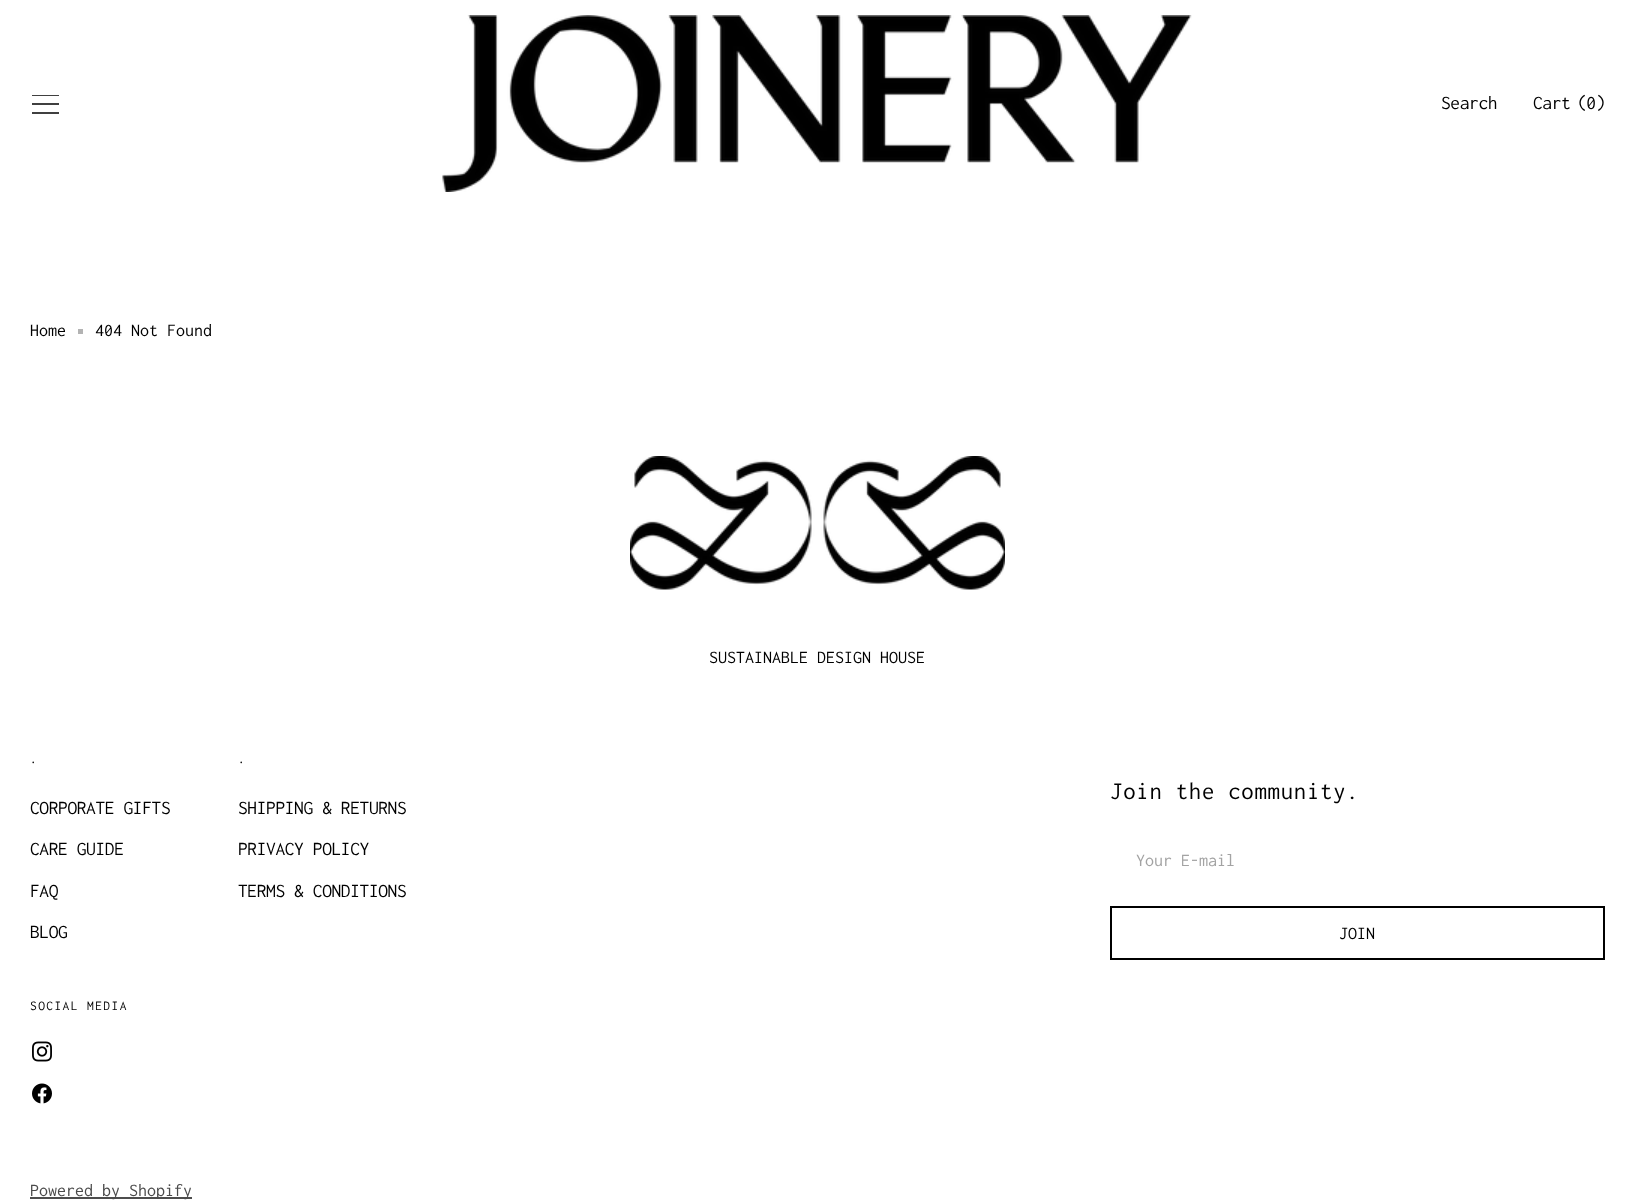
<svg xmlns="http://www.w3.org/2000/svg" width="1635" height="1200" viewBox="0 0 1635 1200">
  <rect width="100%" height="100%" fill="#ffffff"/>
  <rect x="32" y="95" width="27" height="1" fill="#404040"/>
  <rect x="32" y="103" width="27" height="2" fill="#404040"/>
  <rect x="32" y="112" width="27" height="2" fill="#404040"/>
  <image x="442" y="15" width="750" height="177" href="img1.png"/>
  <text x="1441" y="109" font-family="Inconsolata" font-size="19.5" letter-spacing="-0.4" fill="#000000">Search</text>
  <text x="1533" y="109" font-family="Inconsolata" font-size="19.5" letter-spacing="-0.4" fill="#000000">Cart</text>
  <text x="1577" y="109" font-family="Inconsolata" font-size="19.5" letter-spacing="-0.4" fill="#000000">(0)</text>
  <text x="30" y="336" font-family="Inconsolata" font-size="18" fill="#000000">Home</text>
  <rect x="78" y="329" width="5" height="5" fill="#b3b3b3"/>
  <text x="95" y="336" font-family="Inconsolata" font-size="18" fill="#000000">404 Not Found</text>
  <image x="630" y="456" width="375" height="134" href="img2.png"/>
  <text x="709" y="663" font-family="Inconsolata" font-size="18" fill="#000000">SUSTAINABLE DESIGN HOUSE</text>
  <text x="30" y="763" font-family="Inconsolata" font-size="13.5" letter-spacing="1.4" fill="#000000">.</text>
  <text x="30" y="814" font-family="Inconsolata" font-size="19.5" letter-spacing="-0.4" fill="#000000">CORPORATE GIFTS</text>
  <text x="30" y="855" font-family="Inconsolata" font-size="19.5" letter-spacing="-0.4" fill="#000000">CARE GUIDE</text>
  <text x="30" y="897" font-family="Inconsolata" font-size="19.5" letter-spacing="-0.4" fill="#000000">FAQ</text>
  <text x="30" y="938" font-family="Inconsolata" font-size="19.5" letter-spacing="-0.4" fill="#000000">BLOG</text>
  <text x="238" y="763" font-family="Inconsolata" font-size="13.5" letter-spacing="1.4" fill="#000000">.</text>
  <text x="238" y="814" font-family="Inconsolata" font-size="19.5" letter-spacing="-0.4" fill="#000000">SHIPPING &amp; RETURNS</text>
  <text x="238" y="855" font-family="Inconsolata" font-size="19.5" letter-spacing="-0.4" fill="#000000">PRIVACY POLICY</text>
  <text x="238" y="897" font-family="Inconsolata" font-size="19.5" letter-spacing="-0.4" fill="#000000">TERMS &amp; CONDITIONS</text>
  <text x="30" y="1010" font-family="Inconsolata" font-size="13.5" letter-spacing="1.4" fill="#000000">SOCIAL MEDIA</text>
  <image x="32" y="1041" width="20" height="21" href="img3.png"/>
  <image x="32" y="1083" width="20" height="21" href="img4.png"/>
  <text x="1110" y="799" font-family="Inconsolata" font-size="24.75" letter-spacing="0.75" fill="#000000">Join the community.</text>
  <text x="1136" y="866" font-family="Inconsolata" font-size="18" fill="#a3a3a3">Your E-mail</text>
  <rect x="1111" y="907" width="493" height="52" fill="none" stroke="#000000" stroke-width="2"/>
  <text x="1339" y="939" font-family="Inconsolata" font-size="18" fill="#000000">JOIN</text>
  <rect x="30" y="1197" width="162" height="2" fill="#4d4d4d"/>
  <text x="30" y="1196" font-family="Inconsolata" font-size="18" fill="#4b4b4b">Powered by Shopify</text>
</svg>
